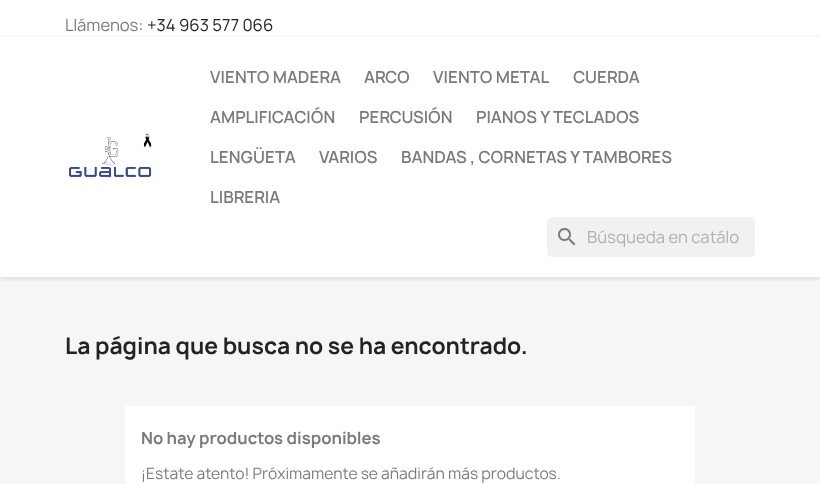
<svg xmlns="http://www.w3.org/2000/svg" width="820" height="484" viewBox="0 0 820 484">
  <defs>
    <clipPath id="clip1"><rect x="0" y="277" width="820" height="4"/></clipPath>
    <filter id="blur1" x="-50%" y="-200%" width="200%" height="500%"><feGaussianBlur stdDeviation="2.5"/></filter>
  </defs>
  <rect width="100%" height="100%" fill="#ffffff"/>
  <rect x="0" y="277" width="820" height="207" fill="#f6f6f6"/>
  <g clip-path="url(#clip1)">
    <rect x="0" y="2" width="820" height="277" fill="#000000" fill-opacity="0.11" filter="url(#blur1)"/>
  </g>
  <rect x="0" y="35" width="820" height="2" fill="#f6f6f6"/>
  <text x="65" y="31" font-family="Manrope" font-size="16" fill="#7a7a7a">Llámenos:</text>
  <text x="147" y="31" font-family="Manrope" font-size="16" fill="#232323">+34 963 577 066</text>
  <image x="69" y="133" width="83" height="44" href="img1.png"/>
  <text x="210" y="83" font-family="Manrope" font-size="16" font-weight="600" fill="#7a7a7a">VIENTO MADERA</text>
  <text x="364" y="83" font-family="Manrope" font-size="16" font-weight="600" fill="#7a7a7a">ARCO</text>
  <text x="433" y="83" font-family="Manrope" font-size="16" font-weight="600" fill="#7a7a7a">VIENTO METAL</text>
  <text x="573" y="83" font-family="Manrope" font-size="16" font-weight="600" fill="#7a7a7a">CUERDA</text>
  <text x="210" y="123" font-family="Manrope" font-size="16" font-weight="600" fill="#7a7a7a">AMPLIFICACIÓN</text>
  <text x="359" y="123" font-family="Manrope" font-size="16" font-weight="600" fill="#7a7a7a">PERCUSIÓN</text>
  <text x="476" y="123" font-family="Manrope" font-size="16" font-weight="600" fill="#7a7a7a">PIANOS Y TECLADOS</text>
  <text x="210" y="163" font-family="Manrope" font-size="16" font-weight="600" fill="#7a7a7a">LENGÜETA</text>
  <text x="319" y="163" font-family="Manrope" font-size="16" font-weight="600" fill="#7a7a7a">VARIOS</text>
  <text x="401" y="163" font-family="Manrope" font-size="16" font-weight="600" fill="#7a7a7a">BANDAS , CORNETAS Y TAMBORES</text>
  <text x="210" y="203" font-family="Manrope" font-size="16" font-weight="600" fill="#7a7a7a">LIBRERIA</text>
  <rect x="547" y="217" width="208" height="40" rx="5" fill="#f1f1f1"/>
  <image x="558" y="228" width="18" height="18" href="img2.png"/>
  <text x="587" y="243" font-family="Manrope" font-size="16" fill="#b1b1b1">Búsqueda en catálo</text>
  <text x="65" y="354" font-family="Manrope" font-size="22" font-weight="bold" fill="#232323">La página que busca no se ha encontrado.</text>
  <rect x="125" y="406" width="570" height="78" fill="#ffffff"/>
  <text x="141" y="444" font-family="Manrope" font-size="16" font-weight="bold" fill="#7a7a7a">No hay productos disponibles</text>
  <text x="141" y="479" font-family="Manrope" font-size="15" fill="#7a7a7a">¡Estate atento! Próximamente se añadirán más productos.</text>
</svg>
